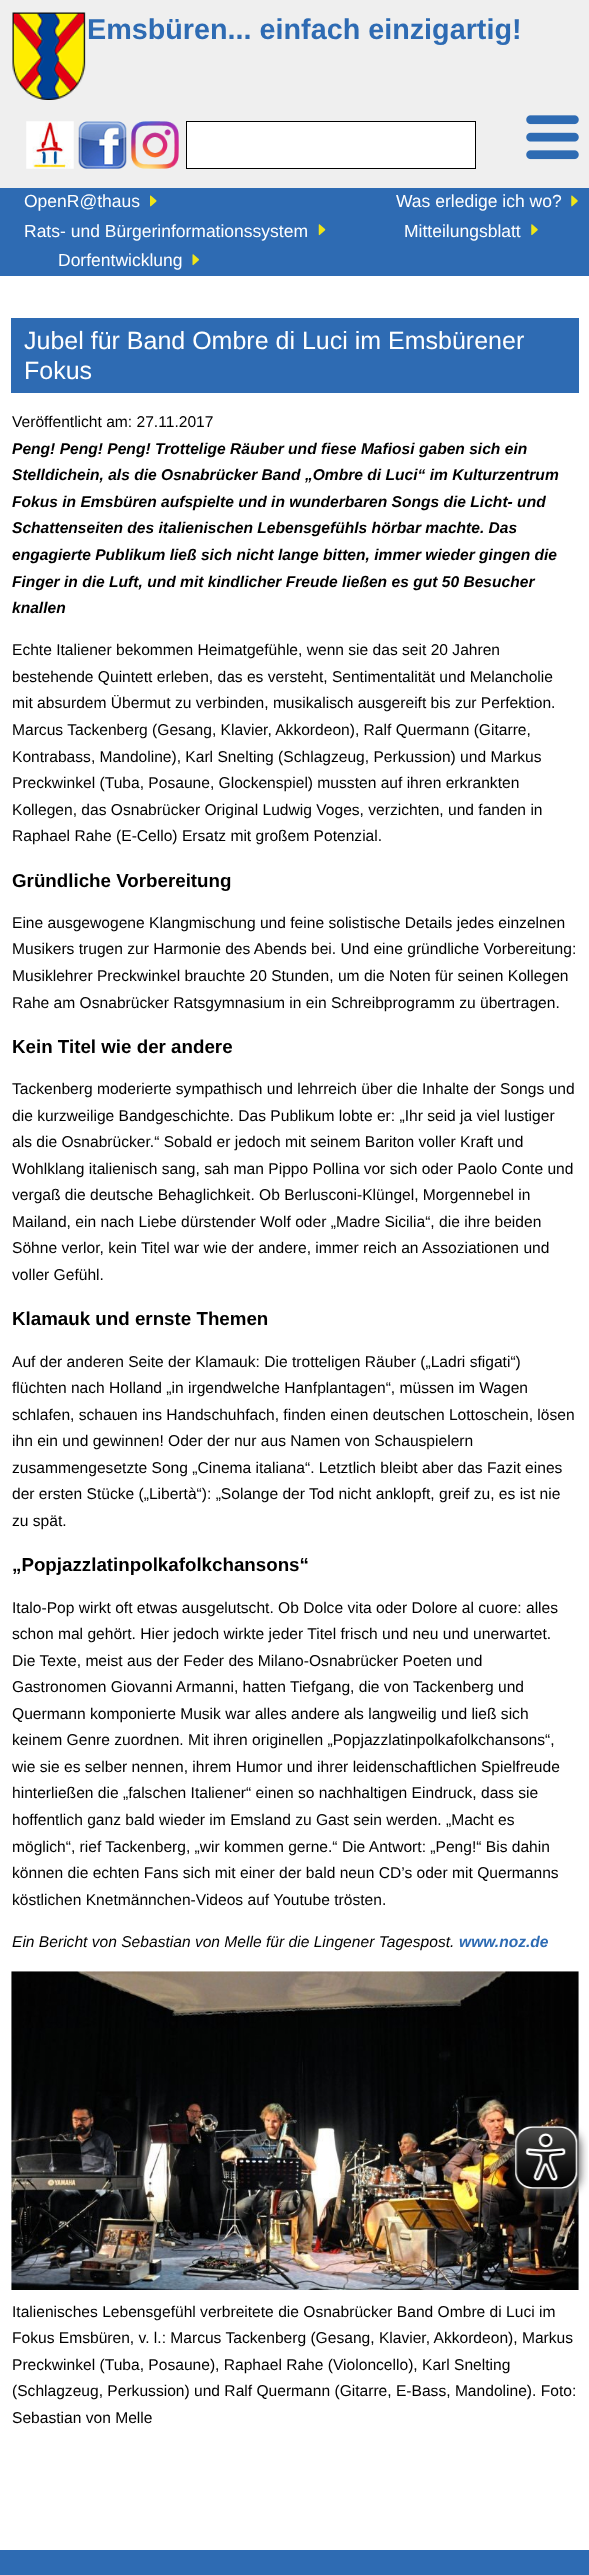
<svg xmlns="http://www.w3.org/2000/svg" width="589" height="2575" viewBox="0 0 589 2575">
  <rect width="100%" height="100%" fill="#ffffff"/>
  <rect x="0" y="0" width="589" height="188" fill="#efefef"/>
  <image x="12" y="12" width="74" height="88" href="img1.png"/>
  <text x="87" y="39" font-family="Liberation Sans" font-size="28.75" font-weight="bold" fill="#2e6bb3">Emsbüren... einfach einzigartig!</text>
  <image x="26" y="121" width="48" height="48" href="img2.png"/>
  <image x="78" y="121" width="49" height="48" href="img3.png"/>
  <image x="131" y="121" width="48" height="48" href="img4.png"/>
  <rect x="186.5" y="121.5" width="289" height="47" fill="#ffffff" stroke="#000000"/>
  <image x="526" y="115" width="53" height="45" href="img5.png"/>
  <rect x="0" y="188" width="589" height="88" fill="#2e6bb3"/>
  <text x="24" y="207" font-family="Liberation Sans" font-size="17.5" fill="#ffffff">OpenR@thaus</text>
  <image x="150" y="195" width="7" height="12" href="img6.png"/>
  <text x="396" y="207" font-family="Liberation Sans" font-size="17.5" fill="#ffffff">Was erledige ich wo?</text>
  <image x="571" y="195" width="7" height="12" href="img7.png"/>
  <text x="24" y="237" font-family="Liberation Sans" font-size="17.5" fill="#ffffff">Rats- und Bürgerinformationssystem</text>
  <image x="318" y="224" width="8" height="12" href="img8.png"/>
  <text x="404" y="237" font-family="Liberation Sans" font-size="17.5" fill="#ffffff">Mitteilungsblatt</text>
  <image x="531" y="224" width="7" height="12" href="img9.png"/>
  <text x="58" y="266" font-family="Liberation Sans" font-size="17.5" fill="#ffffff">Dorfentwicklung</text>
  <image x="192" y="254" width="7" height="12" href="img10.png"/>
  <rect x="11" y="318" width="568" height="75" fill="#2e6bb3"/>
  <text x="24" y="349" font-family="Liberation Sans" font-size="25" fill="#ffffff">Jubel für Band Ombre di Luci im Emsbürener</text>
  <text x="24" y="379" font-family="Liberation Sans" font-size="25" fill="#ffffff">Fokus</text>
  <text x="12" y="427" font-family="Liberation Sans" font-size="15.6" fill="#000000">Veröffentlicht am: 27.11.2017</text>
  <text x="12" y="454" font-family="Liberation Sans" font-size="15.6" font-weight="bold" font-style="italic" fill="#000000">Peng! Peng! Peng! Trottelige Räuber und fiese Mafiosi gaben sich ein</text>
  <text x="12" y="480" font-family="Liberation Sans" font-size="15.6" font-weight="bold" font-style="italic" fill="#000000">Stelldichein, als die Osnabrücker Band „Ombre di Luci“ im Kulturzentrum</text>
  <text x="12" y="507" font-family="Liberation Sans" font-size="15.6" font-weight="bold" font-style="italic" fill="#000000">Fokus in Emsbüren aufspielte und in wunderbaren Songs die Licht- und</text>
  <text x="12" y="533" font-family="Liberation Sans" font-size="15.6" font-weight="bold" font-style="italic" fill="#000000">Schattenseiten des italienischen Lebensgefühls hörbar machte. Das</text>
  <text x="12" y="560" font-family="Liberation Sans" font-size="15.6" font-weight="bold" font-style="italic" fill="#000000">engagierte Publikum ließ sich nicht lange bitten, immer wieder gingen die</text>
  <text x="12" y="587" font-family="Liberation Sans" font-size="15.6" font-weight="bold" font-style="italic" fill="#000000">Finger in die Luft, und mit kindlicher Freude ließen es gut 50 Besucher</text>
  <text x="12" y="613" font-family="Liberation Sans" font-size="15.6" font-weight="bold" font-style="italic" fill="#000000">knallen</text>
  <text x="12" y="655" font-family="Liberation Sans" font-size="15.6" fill="#000000">Echte Italiener bekommen Heimatgefühle, wenn sie das seit 20 Jahren</text>
  <text x="12" y="682" font-family="Liberation Sans" font-size="15.6" fill="#000000">bestehende Quintett erleben, das es versteht, Sentimentalität und Melancholie</text>
  <text x="12" y="708" font-family="Liberation Sans" font-size="15.6" fill="#000000">mit absurdem Übermut zu verbinden, musikalisch ausgereift bis zur Perfektion.</text>
  <text x="12" y="735" font-family="Liberation Sans" font-size="15.6" fill="#000000">Marcus Tackenberg (Gesang, Klavier, Akkordeon), Ralf Quermann (Gitarre,</text>
  <text x="12" y="762" font-family="Liberation Sans" font-size="15.6" fill="#000000">Kontrabass, Mandoline), Karl Snelting (Schlagzeug, Perkussion) und Markus</text>
  <text x="12" y="788" font-family="Liberation Sans" font-size="15.6" fill="#000000">Preckwinkel (Tuba, Posaune, Glockenspiel) mussten auf ihren erkrankten</text>
  <text x="12" y="815" font-family="Liberation Sans" font-size="15.6" fill="#000000">Kollegen, das Osnabrücker Original Ludwig Voges, verzichten, und fanden in</text>
  <text x="12" y="841" font-family="Liberation Sans" font-size="15.6" fill="#000000">Raphael Rahe (E-Cello) Ersatz mit großem Potenzial.</text>
  <text x="12" y="887" font-family="Liberation Sans" font-size="18.75" font-weight="bold" fill="#000000">Gründliche Vorbereitung</text>
  <text x="12" y="928" font-family="Liberation Sans" font-size="15.6" fill="#000000">Eine ausgewogene Klangmischung und feine solistische Details jedes einzelnen</text>
  <text x="12" y="954" font-family="Liberation Sans" font-size="15.6" fill="#000000">Musikers trugen zur Harmonie des Abends bei. Und eine gründliche Vorbereitung:</text>
  <text x="12" y="981" font-family="Liberation Sans" font-size="15.6" fill="#000000">Musiklehrer Preckwinkel brauchte 20 Stunden, um die Noten für seinen Kollegen</text>
  <text x="12" y="1008" font-family="Liberation Sans" font-size="15.6" fill="#000000">Rahe am Osnabrücker Ratsgymnasium in ein Schreibprogramm zu übertragen.</text>
  <text x="12" y="1053" font-family="Liberation Sans" font-size="18.75" font-weight="bold" fill="#000000">Kein Titel wie der andere</text>
  <text x="12" y="1094" font-family="Liberation Sans" font-size="15.6" fill="#000000">Tackenberg moderierte sympathisch und lehrreich über die Inhalte der Songs und</text>
  <text x="12" y="1121" font-family="Liberation Sans" font-size="15.6" fill="#000000">die kurzweilige Bandgeschichte. Das Publikum lobte er: „Ihr seid ja viel lustiger</text>
  <text x="12" y="1147" font-family="Liberation Sans" font-size="15.6" fill="#000000">als die Osnabrücker.“ Sobald er jedoch mit seinem Bariton voller Kraft und</text>
  <text x="12" y="1174" font-family="Liberation Sans" font-size="15.6" fill="#000000">Wohlklang italienisch sang, sah man Pippo Pollina vor sich oder Paolo Conte und</text>
  <text x="12" y="1200" font-family="Liberation Sans" font-size="15.6" fill="#000000">vergaß die deutsche Behaglichkeit. Ob Berlusconi-Klüngel, Morgennebel in</text>
  <text x="12" y="1227" font-family="Liberation Sans" font-size="15.6" fill="#000000">Mailand, ein nach Liebe dürstender Wolf oder „Madre Sicilia“, die ihre beiden</text>
  <text x="12" y="1253" font-family="Liberation Sans" font-size="15.6" fill="#000000">Söhne verlor, kein Titel war wie der andere, immer reich an Assoziationen und</text>
  <text x="12" y="1280" font-family="Liberation Sans" font-size="15.6" fill="#000000">voller Gefühl.</text>
  <text x="12" y="1325" font-family="Liberation Sans" font-size="18.75" font-weight="bold" fill="#000000">Klamauk und ernste Themen</text>
  <text x="12" y="1367" font-family="Liberation Sans" font-size="15.6" fill="#000000">Auf der anderen Seite der Klamauk: Die trotteligen Räuber („Ladri sfigati“)</text>
  <text x="12" y="1393" font-family="Liberation Sans" font-size="15.6" fill="#000000">flüchten nach Holland „in irgendwelche Hanfplantagen“, müssen im Wagen</text>
  <text x="12" y="1420" font-family="Liberation Sans" font-size="15.6" fill="#000000">schlafen, schauen ins Handschuhfach, finden einen deutschen Lottoschein, lösen</text>
  <text x="12" y="1446" font-family="Liberation Sans" font-size="15.6" fill="#000000">ihn ein und gewinnen! Oder der nur aus Namen von Schauspielern</text>
  <text x="12" y="1473" font-family="Liberation Sans" font-size="15.6" fill="#000000">zusammengesetzte Song „Cinema italiana“. Letztlich bleibt aber das Fazit eines</text>
  <text x="12" y="1499" font-family="Liberation Sans" font-size="15.6" fill="#000000">der ersten Stücke („Libertà“): „Solange der Tod nicht anklopft, greif zu, es ist nie</text>
  <text x="12" y="1526" font-family="Liberation Sans" font-size="15.6" fill="#000000">zu spät.</text>
  <text x="12" y="1571" font-family="Liberation Sans" font-size="18.75" font-weight="bold" fill="#000000">„Popjazzlatinpolkafolkchansons“</text>
  <text x="12" y="1613" font-family="Liberation Sans" font-size="15.6" fill="#000000">Italo-Pop wirkt oft etwas ausgelutscht. Ob Dolce vita oder Dolore al cuore: alles</text>
  <text x="12" y="1639" font-family="Liberation Sans" font-size="15.6" fill="#000000">schon mal gehört. Hier jedoch wirkte jeder Titel frisch und neu und unerwartet.</text>
  <text x="12" y="1666" font-family="Liberation Sans" font-size="15.6" fill="#000000">Die Texte, meist aus der Feder des Milano-Osnabrücker Poeten und</text>
  <text x="12" y="1692" font-family="Liberation Sans" font-size="15.6" fill="#000000">Gastronomen Giovanni Armanni, hatten Tiefgang, die von Tackenberg und</text>
  <text x="12" y="1719" font-family="Liberation Sans" font-size="15.6" fill="#000000">Quermann komponierte Musik war alles andere als langweilig und ließ sich</text>
  <text x="12" y="1745" font-family="Liberation Sans" font-size="15.6" fill="#000000">keinem Genre zuordnen. Mit ihren originellen „Popjazzlatinpolkafolkchansons“,</text>
  <text x="12" y="1772" font-family="Liberation Sans" font-size="15.6" fill="#000000">wie sie es selber nennen, ihrem Humor und ihrer leidenschaftlichen Spielfreude</text>
  <text x="12" y="1798" font-family="Liberation Sans" font-size="15.6" fill="#000000">hinterließen die „falschen Italiener“ einen so nachhaltigen Eindruck, dass sie</text>
  <text x="12" y="1825" font-family="Liberation Sans" font-size="15.6" fill="#000000">hoffentlich ganz bald wieder im Emsland zu Gast sein werden. „Macht es</text>
  <text x="12" y="1852" font-family="Liberation Sans" font-size="15.6" fill="#000000">möglich“, rief Tackenberg, „wir kommen gerne.“ Die Antwort: „Peng!“ Bis dahin</text>
  <text x="12" y="1878" font-family="Liberation Sans" font-size="15.6" fill="#000000">können die echten Fans sich mit einer der bald neun CD’s oder mit Quermanns</text>
  <text x="12" y="1905" font-family="Liberation Sans" font-size="15.6" fill="#000000">köstlichen Knetmännchen-Videos auf Youtube trösten.</text>
  <text x="12" y="1947" font-family="Liberation Sans" font-size="15.6" font-style="italic" fill="#000000">Ein Bericht von Sebastian von Melle für die Lingener Tagespost.</text>
  <text x="459" y="1947" font-family="Liberation Sans" font-size="15.6" font-weight="bold" font-style="italic" fill="#2e6bb3">www.noz.de</text>
  <image x="11" y="1971" width="568" height="319" href="img11.png"/>
  <text x="12" y="2317" font-family="Liberation Sans" font-size="15.6" fill="#000000">Italienisches Lebensgefühl verbreitete die Osnabrücker Band Ombre di Luci im</text>
  <text x="12" y="2343" font-family="Liberation Sans" font-size="15.6" fill="#000000">Fokus Emsbüren, v. l.: Marcus Tackenberg (Gesang, Klavier, Akkordeon), Markus</text>
  <text x="12" y="2370" font-family="Liberation Sans" font-size="15.6" fill="#000000">Preckwinkel (Tuba, Posaune), Raphael Rahe (Violoncello), Karl Snelting</text>
  <text x="12" y="2396" font-family="Liberation Sans" font-size="15.6" fill="#000000">(Schlagzeug, Perkussion) und Ralf Quermann (Gitarre, E-Bass, Mandoline). Foto:</text>
  <text x="12" y="2423" font-family="Liberation Sans" font-size="15.6" fill="#000000">Sebastian von Melle</text>
  <rect x="0" y="2550" width="589" height="25" fill="#2e6bb3"/>
  <image x="510" y="2123" width="78" height="77" href="img12.png"/>
</svg>
